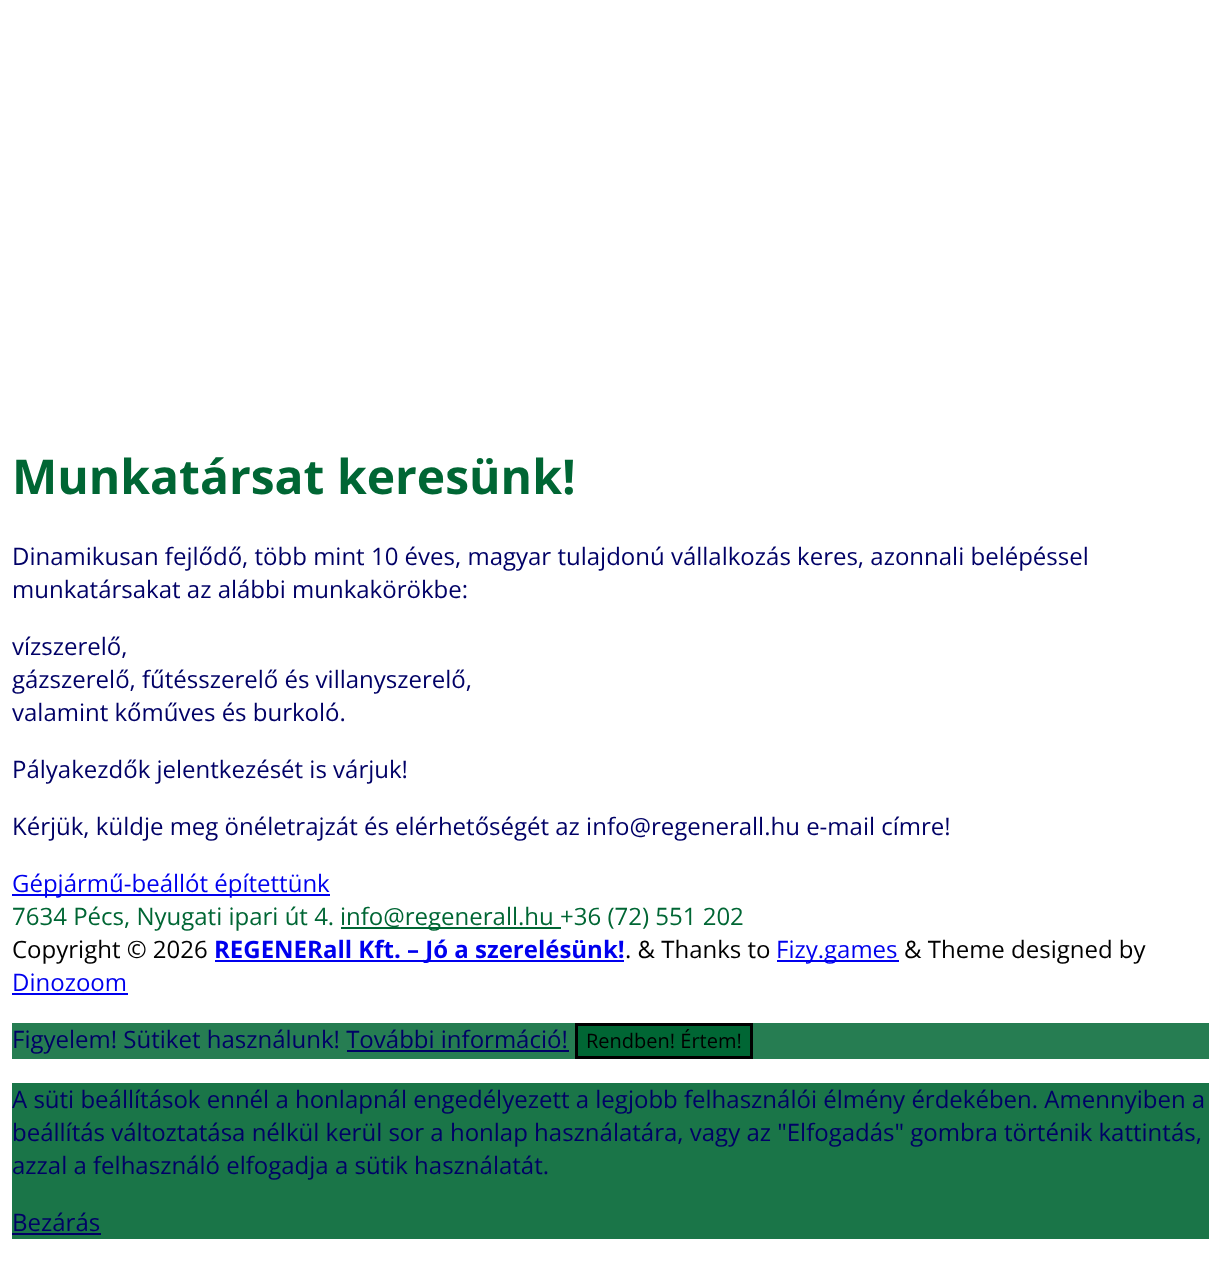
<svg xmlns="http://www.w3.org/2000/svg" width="1221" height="1263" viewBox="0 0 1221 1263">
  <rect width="100%" height="100%" fill="#ffffff"/>
  <text x="12" y="494" font-family="Open Sans" font-size="48" font-weight="bold" fill="#006634">Munkatársat keresünk!</text>
  <text x="12" y="565" font-family="Open Sans" font-size="24" fill="#000066">Dinamikusan fejlődő, több mint 10 éves, magyar tulajdonú vállalkozás keres, azonnali belépéssel</text>
  <text x="12" y="598" font-family="Open Sans" font-size="24" fill="#000066">munkatársakat az alábbi munkakörökbe:</text>
  <text x="12" y="655" font-family="Open Sans" font-size="24" fill="#000066">vízszerelő,</text>
  <text x="12" y="688" font-family="Open Sans" font-size="24" fill="#000066">gázszerelő, fűtésszerelő és villanyszerelő,</text>
  <text x="12" y="721" font-family="Open Sans" font-size="24" fill="#000066">valamint kőműves és burkoló.</text>
  <text x="12" y="778" font-family="Open Sans" font-size="24" fill="#000066">Pályakezdők jelentkezését is várjuk!</text>
  <text x="12" y="835" font-family="Open Sans" font-size="24" fill="#000066">Kérjük, küldje meg önéletrajzát és elérhetőségét az info@regenerall.hu e-mail címre!</text>
  <rect x="12" y="894" width="318" height="2" fill="#0000ee"/>
  <text x="12" y="892" font-family="Open Sans" font-size="24" fill="#0000ee">Gépjármű-beállót építettünk</text>
  <text x="12" y="925" font-family="Open Sans" font-size="24" fill="#006634">7634 Pécs, Nyugati ipari út 4.</text>
  <rect x="341" y="927" width="220" height="2" fill="#006634"/>
  <text x="340" y="925" font-family="Open Sans" font-size="24" fill="#006634">info@regenerall.hu +36 (72) 551 202</text>
  <text x="12" y="958" font-family="Open Sans" font-size="24" fill="#000000">Copyright © 2026</text>
  <rect x="215" y="960" width="409" height="2" fill="#0000ee"/>
  <text x="214" y="958" font-family="Open Sans" font-size="24" font-weight="bold" fill="#0000ee">REGENERall Kft. – Jó a szerelésünk!</text>
  <text x="625" y="958" font-family="Open Sans" font-size="24" fill="#000000">. &amp; Thanks to</text>
  <rect x="777" y="960" width="122" height="2" fill="#0000ee"/>
  <text x="776" y="958" font-family="Open Sans" font-size="24" fill="#0000ee">Fizy.games</text>
  <text x="904" y="958" font-family="Open Sans" font-size="24" fill="#000000">&amp; Theme designed by</text>
  <text x="12" y="991" font-family="Open Sans" font-size="24" fill="#0000ee">Dinozoom</text>
  <rect x="12" y="993" width="116" height="2" fill="#0000ee"/>
  <rect x="12" y="1023" width="1197" height="36" fill="#267d52"/>
  <text x="12" y="1048" font-family="Open Sans" font-size="24" fill="#000066">Figyelem! Sütiket használunk! További információ!</text>
  <rect x="576.5" y="1024.5" width="175" height="33" fill="#006634" stroke="#000000" stroke-width="3"/>
  <text x="586" y="1048" font-family="Open Sans" font-size="20" fill="#000000">Rendben! Értem!</text>
  <rect x="347" y="1050" width="222" height="2" fill="#000066"/>
  <rect x="12" y="1083" width="1197" height="156" fill="#1a7548"/>
  <text x="12" y="1108" font-family="Open Sans" font-size="24" fill="#000066">A süti beállítások ennél a honlapnál engedélyezett a legjobb felhasználói élmény érdekében. Amennyiben a</text>
  <text x="12" y="1141" font-family="Open Sans" font-size="24" fill="#000066">beállítás változtatása nélkül kerül sor a honlap használatára, vagy az "Elfogadás" gombra történik kattintás,</text>
  <text x="12" y="1174" font-family="Open Sans" font-size="24" fill="#000066">azzal a felhasználó elfogadja a sütik használatát.</text>
  <text x="12" y="1231" font-family="Open Sans" font-size="24" fill="#000066">Bezárás</text>
  <rect x="12" y="1233" width="89" height="2" fill="#000066"/>
</svg>
